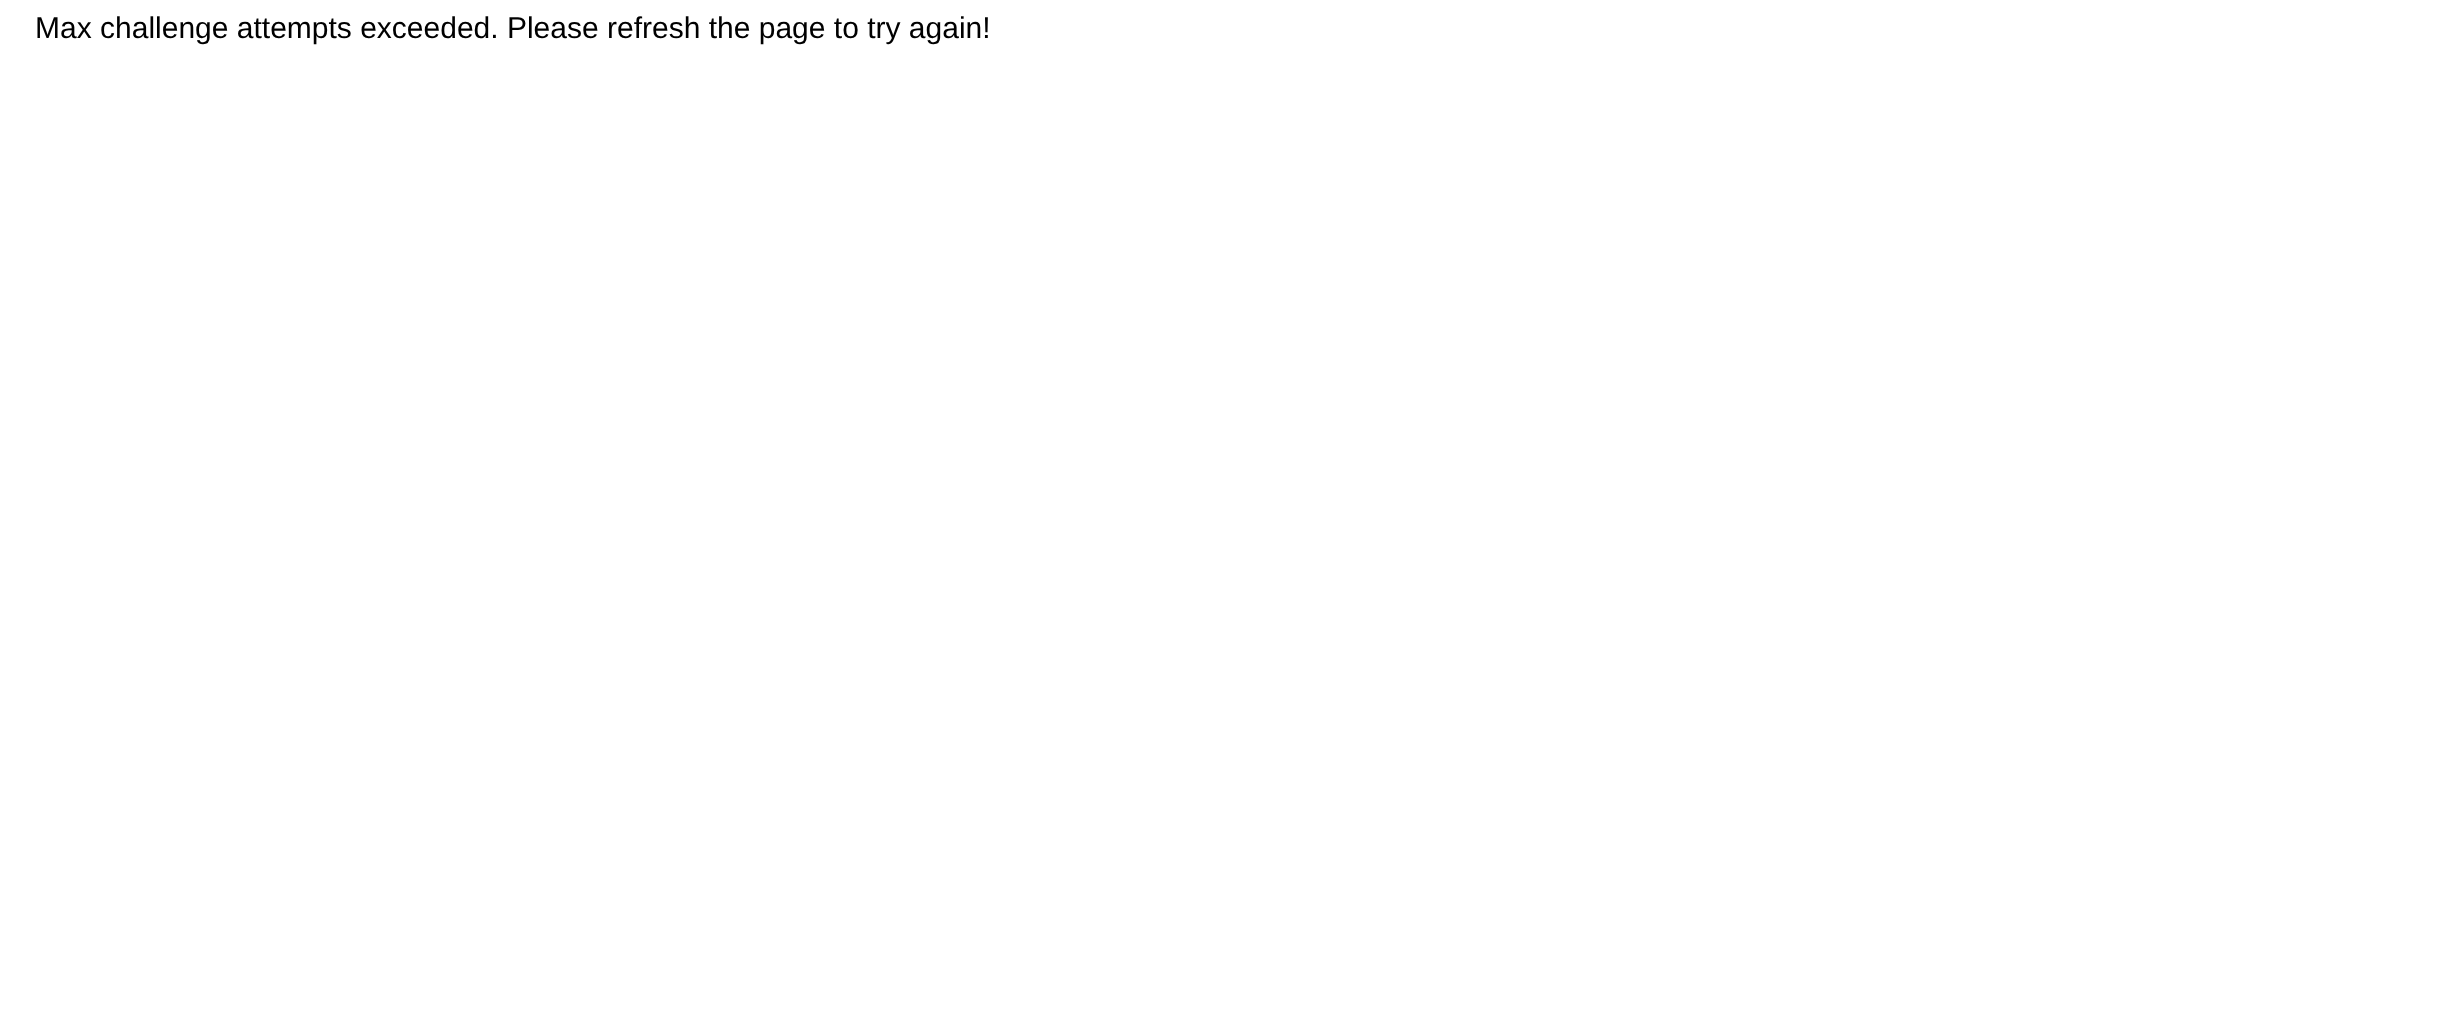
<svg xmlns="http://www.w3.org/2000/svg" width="2447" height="1013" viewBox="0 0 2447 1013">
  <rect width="100%" height="100%" fill="#ffffff"/>
  <text x="35" y="38" font-family="Liberation Sans" font-size="30" fill="#000000">Max challenge attempts exceeded. Please refresh the page to try again!</text>
</svg>
